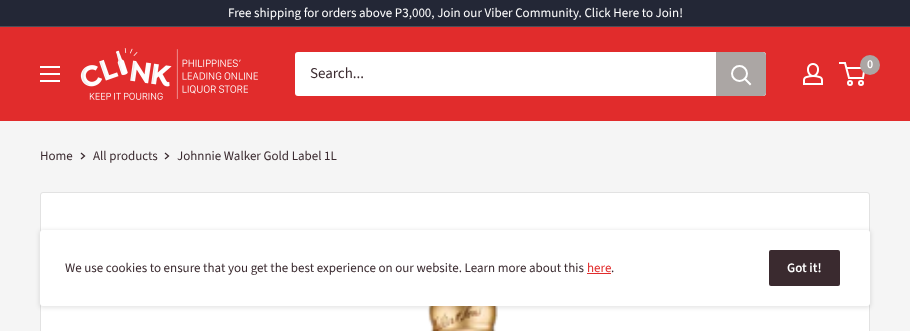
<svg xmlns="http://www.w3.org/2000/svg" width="910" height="331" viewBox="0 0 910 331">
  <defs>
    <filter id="blur1" x="-50%" y="-200%" width="200%" height="500%"><feGaussianBlur stdDeviation="2"/></filter>
  </defs>
  <rect width="100%" height="100%" fill="#f5f5f5"/>
  <rect x="0" y="0" width="910" height="26" fill="#232736"/>
  <rect x="0" y="26" width="910" height="1" fill="#4c4d57"/>
  <text x="228" y="17" font-family="Source Sans Pro" font-size="13" fill="#ffffff">Free shipping for orders above P3,000, Join our Viber Community. Click Here to Join!</text>
  <rect x="0" y="27" width="910" height="94" fill="#e12c2c"/>
  <image x="80" y="48" width="178" height="52" href="img1.png"/>
  <image x="803" y="63" width="20" height="22" href="img2.png"/>
  <circle cx="850" cy="83" r="2" fill="none" stroke="#ffffff" stroke-width="2"/>
  <circle cx="861" cy="83" r="2" fill="none" stroke="#ffffff" stroke-width="2"/>
  <path d="M846.5 68H864.5L863 78H849L845 63H839" fill="none" stroke="#ffffff" stroke-width="2"/>
  <circle cx="870" cy="65" r="10" fill="#aba6a4"/>
  <text x="867" y="68" font-family="Source Sans Pro" font-size="12" font-weight="600" fill="#ffffff">0</text>
  <image x="40" y="66" width="20" height="16" href="img3.png"/>
  <rect x="295" y="52" width="471" height="44" rx="3" fill="#ffffff"/>
  <text x="310" y="78" font-family="Source Sans Pro" font-size="15" fill="#3a2a2f">Search...</text>
  <path d="M716 52H763C764.5 52 766 53.5 766 55V93C766 94.5 764.5 96 763 96H716Z" fill="#aba6a4"/>
  <path d="M750 84L745 79" fill="none" stroke="#ffffff" stroke-width="2" stroke-linecap="square"/>
  <circle cx="739.5" cy="73.5" r="7.5" fill="none" stroke="#ffffff" stroke-width="2"/>
  <text x="40" y="160" font-family="Source Sans Pro" font-size="13" fill="#3a2a2f">Home</text>
  <path d="M81.5 153.5L84.5 156L81.5 158.5" fill="none" stroke="#3a2a2f" stroke-width="1.3" stroke-linecap="square"/>
  <text x="93" y="160" font-family="Source Sans Pro" font-size="13" fill="#3a2a2f">All products</text>
  <path d="M165.5 153.5L168.5 156L165.5 158.5" fill="none" stroke="#3a2a2f" stroke-width="1.3" stroke-linecap="square"/>
  <text x="177" y="160" font-family="Source Sans Pro" font-size="13" fill="#3a2a2f">Johnnie Walker Gold Label 1L</text>
  <rect x="40.5" y="192.5" width="829" height="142" rx="2.5" fill="#ffffff" stroke="#e2e2e2"/>
  <image x="427" y="306" width="71" height="25" href="img4.png"/>
  <rect x="39" y="230" width="832" height="78" rx="4" fill="#000000" fill-opacity="0.1" filter="url(#blur1)"/>
  <rect x="40" y="230" width="830" height="76" rx="3" fill="#ffffff"/>
  <text x="65" y="272" font-family="Source Sans Pro" font-size="13" fill="#3a2a2f">We use cookies to ensure that you get the best experience on our website. Learn more about this</text>
  <text x="587" y="272" font-family="Source Sans Pro" font-size="13" fill="#e12c2c">here</text>
  <rect x="587" y="273" width="24" height="1" fill="#e12c2c"/>
  <text x="611" y="272" font-family="Source Sans Pro" font-size="13" fill="#3a2a2f">.</text>
  <rect x="769" y="250" width="71" height="36" rx="2" fill="#3a2a2f"/>
  <text x="787" y="272" font-family="Source Sans Pro" font-size="13" font-weight="600" fill="#ffffff">Got it!</text>
</svg>
